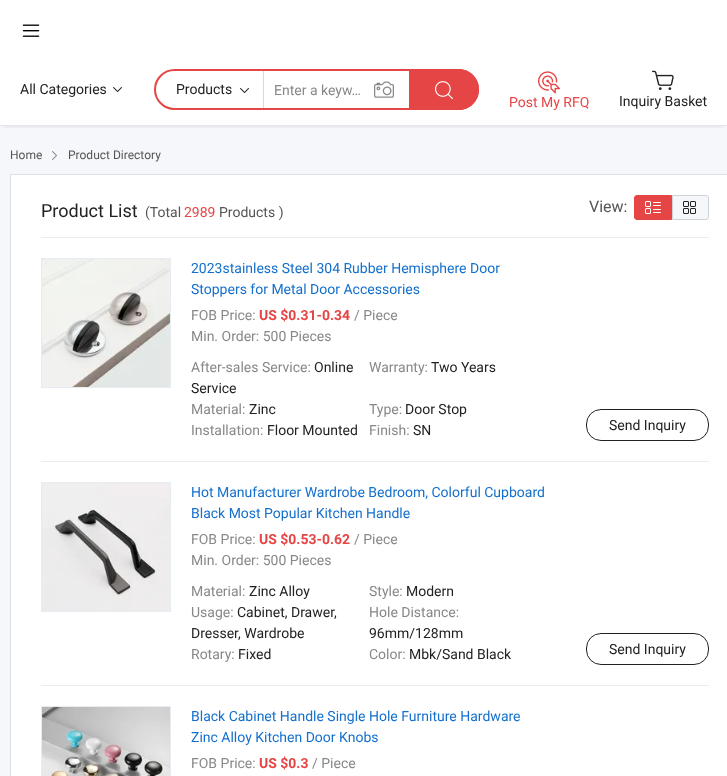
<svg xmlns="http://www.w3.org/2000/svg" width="727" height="776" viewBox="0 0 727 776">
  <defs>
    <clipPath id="clip1"><rect x="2" y="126" width="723" height="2"/></clipPath>
    <filter id="blur1" x="-50%" y="-200%" width="200%" height="500%"><feGaussianBlur stdDeviation="2.5"/></filter>
  </defs>
  <rect width="100%" height="100%" fill="#ffffff"/>
  <rect x="0" y="126" width="727" height="650" fill="#f5f7fa"/>
  <g clip-path="url(#clip1)">
    <rect x="3" y="6" width="721" height="120" fill="#000000" fill-opacity="0.12" filter="url(#blur1)"/>
  </g>
  <image x="22" y="24" width="18" height="13" href="img1.png"/>
  <text x="20" y="94" font-family="Roboto" font-size="14" fill="#222222">All Categories</text>
  <image x="113" y="87" width="9" height="5" href="img2.png"/>
  <rect x="155" y="70" width="323" height="39" rx="19.5" fill="none" stroke="#e64545" stroke-width="2"/>
  <rect x="263" y="71" width="1" height="37" fill="#dadada"/>
  <text x="176" y="94" font-family="Roboto" font-size="14" fill="#222222">Products</text>
  <image x="240" y="88" width="9" height="5" href="img2.png"/>
  <text x="274" y="95" font-family="Roboto" font-size="14" fill="#888888">Enter a keyw…</text>
  <image x="374" y="81" width="20" height="17" href="img3.png"/>
  <path d="M409 69H458.5C470 69 479 78 479 89.5C479 101 470 110 458.5 110H409Z" fill="#e64545"/>
  <image x="435" y="81" width="18" height="19" href="img4.png"/>
  <image x="538" y="71" width="22" height="23" href="img5.png"/>
  <text x="509" y="107" font-family="Roboto" font-size="14" fill="#e64545">Post My RFQ</text>
  <image x="652" y="70" width="22" height="20" href="img6.png"/>
  <text x="619" y="106" font-family="Roboto" font-size="14" fill="#222222">Inquiry Basket</text>
  <rect x="0" y="125" width="727" height="1" fill="#e6e7eb"/>
  <text x="10" y="159" font-family="Roboto" font-size="12" fill="#555555">Home</text>
  <image x="52" y="151" width="5" height="9" href="img7.png"/>
  <text x="68" y="159" font-family="Roboto" font-size="12" fill="#555555">Product Directory</text>
  <rect x="10.5" y="174.5" width="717" height="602" fill="#ffffff" stroke="#dae0e6"/>
  <rect x="41" y="237" width="668" height="1" fill="#e6ecf2"/>
  <text x="41" y="217" font-family="Roboto" font-size="18" fill="#222222">Product List</text>
  <text x="145" y="217" font-family="Roboto" font-size="14" fill="#555555">(Total</text>
  <text x="184" y="217" font-family="Roboto" font-size="14" fill="#e64545">2989</text>
  <text x="219" y="217" font-family="Roboto" font-size="14" fill="#555555">Products )</text>
  <text x="589" y="212" font-family="Roboto" font-size="16" fill="#555555">View:</text>
  <path d="M637 195.5H671.5V219.5H637C635.5 219.5 634.5 218.5 634.5 217V198C634.5 196.5 635.5 195.5 637 195.5Z" fill="#e64545" stroke="#e64545"/>
  <image x="645" y="201" width="16" height="13" href="img8.png"/>
  <path d="M672.5 195.5H706C707.5 195.5 708.5 196.5 708.5 198V217C708.5 218.5 707.5 219.5 706 219.5H672.5Z" fill="#f5f7fa" stroke="#ced3d9"/>
  <image x="683" y="201" width="13" height="13" href="img9.png"/>
  <rect x="41" y="461" width="668" height="1" fill="#e6ecf2"/>
  <rect x="41.5" y="258.5" width="129" height="129" fill="none" stroke="#e6ecf2"/>
  <image x="42" y="259" width="128" height="128" href="img10.png"/>
  <text x="191" y="273" font-family="Roboto" font-size="14" fill="#1470cc">2023stainless Steel 304 Rubber Hemisphere Door</text>
  <text x="191" y="294" font-family="Roboto" font-size="14" fill="#1470cc">Stoppers for Metal Door Accessories</text>
  <text x="191" y="320" font-family="Roboto" font-size="14" fill="#888888">FOB Price:</text>
  <text x="259" y="320" font-family="Roboto" font-size="14" font-weight="bold" fill="#e64545">US $0.31-0.34</text>
  <text x="354" y="320" font-family="Roboto" font-size="14" fill="#888888">/ Piece</text>
  <text x="191" y="341" font-family="Roboto" font-size="14" fill="#888888">Min. Order: 500 Pieces</text>
  <text x="191" y="372" font-family="Roboto" font-size="14" fill="#888888">After-sales Service:</text>
  <text x="314" y="372" font-family="Roboto" font-size="14" fill="#222222">Online</text>
  <text x="191" y="393" font-family="Roboto" font-size="14" fill="#222222">Service</text>
  <text x="369" y="372" font-family="Roboto" font-size="14" fill="#888888">Warranty:</text>
  <text x="431" y="372" font-family="Roboto" font-size="14" fill="#222222">Two Years</text>
  <text x="191" y="414" font-family="Roboto" font-size="14" fill="#888888">Material:</text>
  <text x="249" y="414" font-family="Roboto" font-size="14" fill="#222222">Zinc</text>
  <text x="369" y="414" font-family="Roboto" font-size="14" fill="#888888">Type:</text>
  <text x="405" y="414" font-family="Roboto" font-size="14" fill="#222222">Door Stop</text>
  <text x="191" y="435" font-family="Roboto" font-size="14" fill="#888888">Installation:</text>
  <text x="267" y="435" font-family="Roboto" font-size="14" fill="#222222">Floor Mounted</text>
  <text x="369" y="435" font-family="Roboto" font-size="14" fill="#888888">Finish:</text>
  <text x="413" y="435" font-family="Roboto" font-size="14" fill="#222222">SN</text>
  <rect x="586.5" y="409.5" width="122" height="31" rx="14.5" fill="none" stroke="#222222"/>
  <text x="609" y="430" font-family="Roboto" font-size="14" fill="#222222">Send Inquiry</text>
  <rect x="41" y="685" width="668" height="1" fill="#e6ecf2"/>
  <rect x="41.5" y="482.5" width="129" height="129" fill="none" stroke="#e6ecf2"/>
  <image x="42" y="483" width="128" height="128" href="img11.png"/>
  <text x="191" y="497" font-family="Roboto" font-size="14" fill="#1470cc">Hot Manufacturer Wardrobe Bedroom, Colorful Cupboard</text>
  <text x="191" y="518" font-family="Roboto" font-size="14" fill="#1470cc">Black Most Popular Kitchen Handle</text>
  <text x="191" y="544" font-family="Roboto" font-size="14" fill="#888888">FOB Price:</text>
  <text x="259" y="544" font-family="Roboto" font-size="14" font-weight="bold" fill="#e64545">US $0.53-0.62</text>
  <text x="354" y="544" font-family="Roboto" font-size="14" fill="#888888">/ Piece</text>
  <text x="191" y="565" font-family="Roboto" font-size="14" fill="#888888">Min. Order: 500 Pieces</text>
  <text x="191" y="596" font-family="Roboto" font-size="14" fill="#888888">Material:</text>
  <text x="249" y="596" font-family="Roboto" font-size="14" fill="#222222">Zinc Alloy</text>
  <text x="369" y="596" font-family="Roboto" font-size="14" fill="#888888">Style:</text>
  <text x="406" y="596" font-family="Roboto" font-size="14" fill="#222222">Modern</text>
  <text x="191" y="617" font-family="Roboto" font-size="14" fill="#888888">Usage:</text>
  <text x="237" y="617" font-family="Roboto" font-size="14" fill="#222222">Cabinet, Drawer,</text>
  <text x="191" y="638" font-family="Roboto" font-size="14" fill="#222222">Dresser, Wardrobe</text>
  <text x="369" y="617" font-family="Roboto" font-size="14" fill="#888888">Hole Distance:</text>
  <text x="369" y="638" font-family="Roboto" font-size="14" fill="#222222">96mm/128mm</text>
  <text x="191" y="659" font-family="Roboto" font-size="14" fill="#888888">Rotary:</text>
  <text x="238" y="659" font-family="Roboto" font-size="14" fill="#222222">Fixed</text>
  <text x="369" y="659" font-family="Roboto" font-size="14" fill="#888888">Color:</text>
  <text x="409" y="659" font-family="Roboto" font-size="14" fill="#222222">Mbk/Sand Black</text>
  <rect x="586.5" y="633.5" width="122" height="31" rx="14.5" fill="none" stroke="#222222"/>
  <text x="609" y="654" font-family="Roboto" font-size="14" fill="#222222">Send Inquiry</text>
  <rect x="41.5" y="706.5" width="129" height="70" fill="none" stroke="#e6ecf2"/>
  <image x="42" y="707" width="128" height="69" href="img12.png"/>
  <text x="191" y="721" font-family="Roboto" font-size="14" fill="#1470cc">Black Cabinet Handle Single Hole Furniture Hardware</text>
  <text x="191" y="742" font-family="Roboto" font-size="14" fill="#1470cc">Zinc Alloy Kitchen Door Knobs</text>
  <text x="191" y="768" font-family="Roboto" font-size="14" fill="#888888">FOB Price:</text>
  <text x="259" y="768" font-family="Roboto" font-size="14" font-weight="bold" fill="#e64545">US $0.3</text>
  <text x="312" y="768" font-family="Roboto" font-size="14" fill="#888888">/ Piece</text>
</svg>
